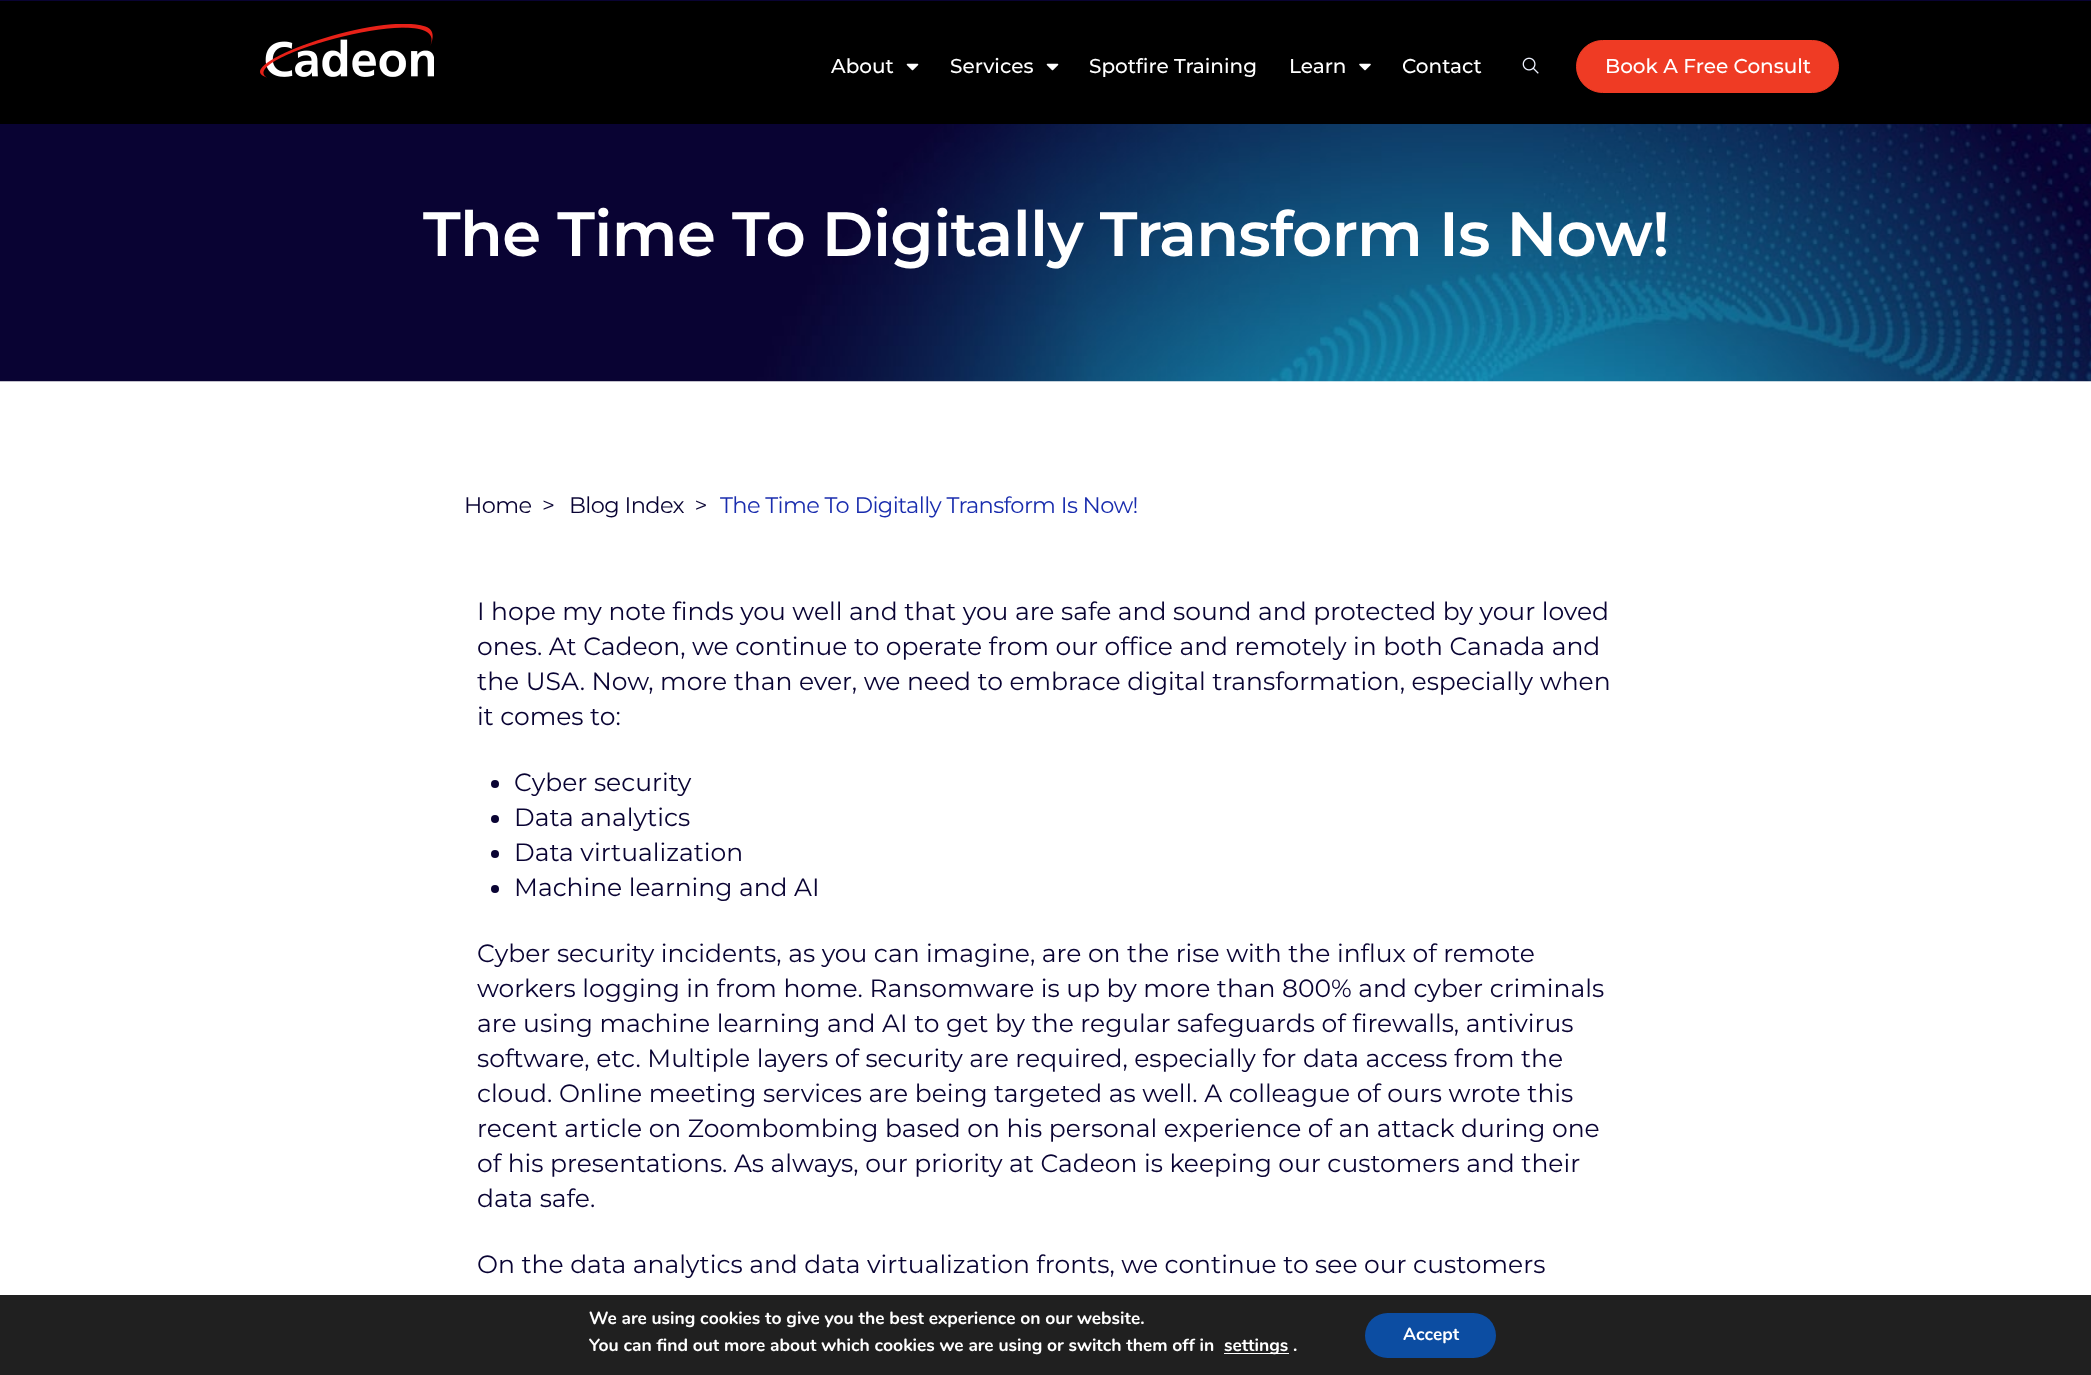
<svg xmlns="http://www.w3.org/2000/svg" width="2091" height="1375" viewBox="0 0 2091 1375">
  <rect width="100%" height="100%" fill="#ffffff"/>
  <rect x="0" y="1" width="2091" height="123" fill="#000000"/>
  <rect x="0" y="0" width="2091" height="1" fill="#090333"/>
  <image x="260" y="24" width="174" height="54" href="img1.png"/>
  <text x="831" y="73" font-family="Montserrat" font-size="20" font-weight="500" fill="#ffffff">About</text>
  <image x="906" y="63" width="13" height="8" href="img2.png"/>
  <text x="950" y="73" font-family="Montserrat" font-size="20" font-weight="500" fill="#ffffff">Services</text>
  <image x="1046" y="63" width="13" height="8" href="img2.png"/>
  <text x="1089" y="73" font-family="Montserrat" font-size="20" font-weight="500" fill="#ffffff">Spotfire Training</text>
  <text x="1289" y="73" font-family="Montserrat" font-size="20" font-weight="500" fill="#ffffff">Learn</text>
  <image x="1359" y="63" width="12" height="8" href="img3.png"/>
  <text x="1402" y="73" font-family="Montserrat" font-size="20" font-weight="500" fill="#ffffff">Contact</text>
  <image x="1522" y="57" width="17" height="17" href="img4.png"/>
  <rect x="1576.5" y="40.5" width="262" height="52" rx="26" fill="#ef3b24" stroke="#ef3b24"/>
  <text x="1605" y="73" font-family="Montserrat" font-size="20" font-weight="500" fill="#ffffff">Book A Free Consult</text>
  <image x="0" y="124" width="2091" height="258" href="img5.png"/>
  <text x="423" y="256" font-family="Montserrat" font-size="62.5" font-weight="600" letter-spacing="-0.6" fill="#ffffff">The Time To Digitally Transform Is Now!</text>
  <text x="464" y="513" font-family="Montserrat" font-size="22.5" letter-spacing="-0.6" fill="#090333" xml:space="preserve">Home  &gt;</text>
  <text x="569" y="513" font-family="Montserrat" font-size="22.5" letter-spacing="-0.6" fill="#090333" xml:space="preserve">Blog Index  &gt;</text>
  <text x="720" y="513" font-family="Montserrat" font-size="22.5" letter-spacing="-0.6" fill="#1a2dae">The Time To Digitally Transform Is Now!</text>
  <text x="477" y="620" font-family="Montserrat" font-size="25" fill="#090333">I hope my note finds you well and that you are safe and sound and protected by your loved</text>
  <text x="477" y="655" font-family="Montserrat" font-size="25" fill="#090333">ones. At Cadeon, we continue to operate from our office and remotely in both Canada and</text>
  <text x="477" y="690" font-family="Montserrat" font-size="25" fill="#090333">the USA. Now, more than ever, we need to embrace digital transformation, especially when</text>
  <text x="477" y="725" font-family="Montserrat" font-size="25" fill="#090333">it comes to:</text>
  <circle cx="495" cy="784" r="4" fill="#090333"/>
  <text x="514" y="791" font-family="Montserrat" font-size="25" fill="#090333">Cyber security</text>
  <circle cx="495" cy="819" r="4" fill="#090333"/>
  <text x="514" y="826" font-family="Montserrat" font-size="25" fill="#090333">Data analytics</text>
  <circle cx="495" cy="854" r="4" fill="#090333"/>
  <text x="514" y="861" font-family="Montserrat" font-size="25" fill="#090333">Data virtualization</text>
  <circle cx="495" cy="889" r="4" fill="#090333"/>
  <text x="514" y="896" font-family="Montserrat" font-size="25" fill="#090333">Machine learning and AI</text>
  <text x="477" y="962" font-family="Montserrat" font-size="25" fill="#090333">Cyber security incidents, as you can imagine, are on the rise with the influx of remote</text>
  <text x="477" y="997" font-family="Montserrat" font-size="25" fill="#090333">workers logging in from home. Ransomware is up by more than 800% and cyber criminals</text>
  <text x="477" y="1032" font-family="Montserrat" font-size="25" fill="#090333">are using machine learning and AI to get by the regular safeguards of firewalls, antivirus</text>
  <text x="477" y="1067" font-family="Montserrat" font-size="25" fill="#090333">software, etc. Multiple layers of security are required, especially for data access from the</text>
  <text x="477" y="1102" font-family="Montserrat" font-size="25" fill="#090333">cloud. Online meeting services are being targeted as well. A colleague of ours wrote this</text>
  <text x="477" y="1137" font-family="Montserrat" font-size="25" fill="#090333">recent article on Zoombombing based on his personal experience of an attack during one</text>
  <text x="477" y="1172" font-family="Montserrat" font-size="25" fill="#090333">of his presentations. As always, our priority at Cadeon is keeping our customers and their</text>
  <text x="477" y="1207" font-family="Montserrat" font-size="25" fill="#090333">data safe.</text>
  <text x="477" y="1273" font-family="Montserrat" font-size="25" fill="#090333">On the data analytics and data virtualization fronts, we continue to see our customers</text>
  <rect x="0" y="1295" width="2091" height="80" fill="#202020"/>
  <text x="589" y="1324" font-family="Nunito" font-size="17.5" font-weight="bold" fill="#ffffff">We are using cookies to give you the best experience on our website.</text>
  <text x="589" y="1351" font-family="Nunito" font-size="17.5" font-weight="bold" fill="#ffffff">You can find out more about which cookies we are using or switch them off in</text>
  <rect x="1224" y="1353" width="65" height="1" fill="#ffffff"/>
  <text x="1224" y="1351" font-family="Nunito" font-size="17.5" font-weight="bold" fill="#ffffff">settings .</text>
  <rect x="1365" y="1313" width="131" height="45" rx="22.5" fill="#0c4da2"/>
  <text x="1403" y="1340" font-family="Nunito" font-size="17.5" font-weight="bold" fill="#ffffff">Accept</text>
</svg>
